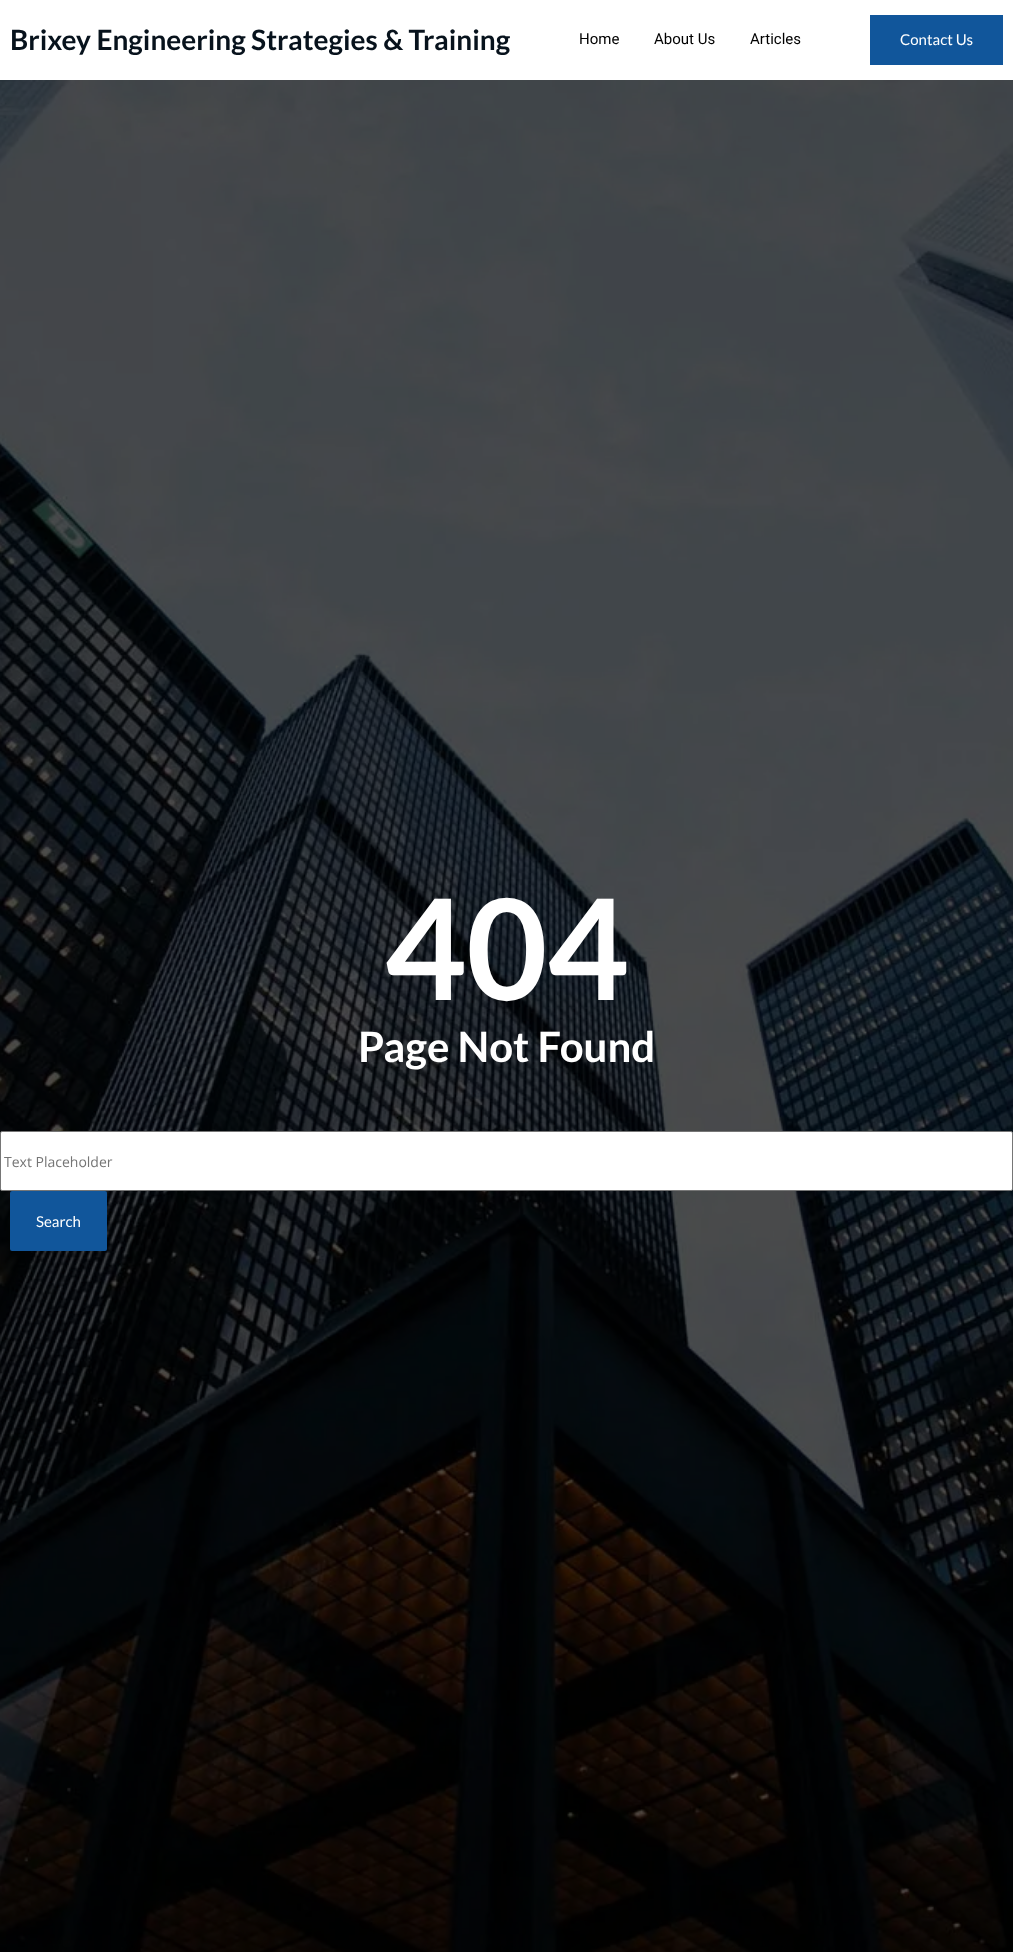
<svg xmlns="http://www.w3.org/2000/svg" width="1013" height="1952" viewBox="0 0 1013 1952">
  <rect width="100%" height="100%" fill="#ffffff"/>
  <text x="10" y="50" font-family="Lato" font-size="28" font-weight="bold" fill="#07121c">Brixey Engineering Strategies &amp; Training</text>
  <text x="579" y="44" font-family="Roboto" font-size="15" fill="#000000">Home</text>
  <text x="654" y="44" font-family="Roboto" font-size="15" fill="#000000">About Us</text>
  <text x="750" y="44" font-family="Roboto" font-size="15" fill="#000000">Articles</text>
  <rect x="870" y="15" width="133" height="50" fill="#11569b"/>
  <text x="900" y="45" font-family="Lato" font-size="15" fill="#ffffff">Contact Us</text>
  <image x="0" y="80" width="1013" height="1872" href="img1.png"/>
  <text x="385" y="1000" font-family="Lato" font-size="140" font-weight="bold" fill="#ffffff">404</text>
  <text x="358" y="1062" font-family="Lato" font-size="42" font-weight="bold" fill="#ffffff">Page Not Found</text>
  <rect x="0.5" y="1131.5" width="1012" height="59" rx="1.5" fill="#ffffff" stroke="#767676"/>
  <text x="4" y="1167" font-family="Open Sans" font-size="14" fill="#757575">Text Placeholder</text>
  <rect x="10" y="1191" width="97" height="60" rx="2" fill="#11569b"/>
  <text x="36" y="1227" font-family="Lato" font-size="15" fill="#ffffff">Search</text>
</svg>
